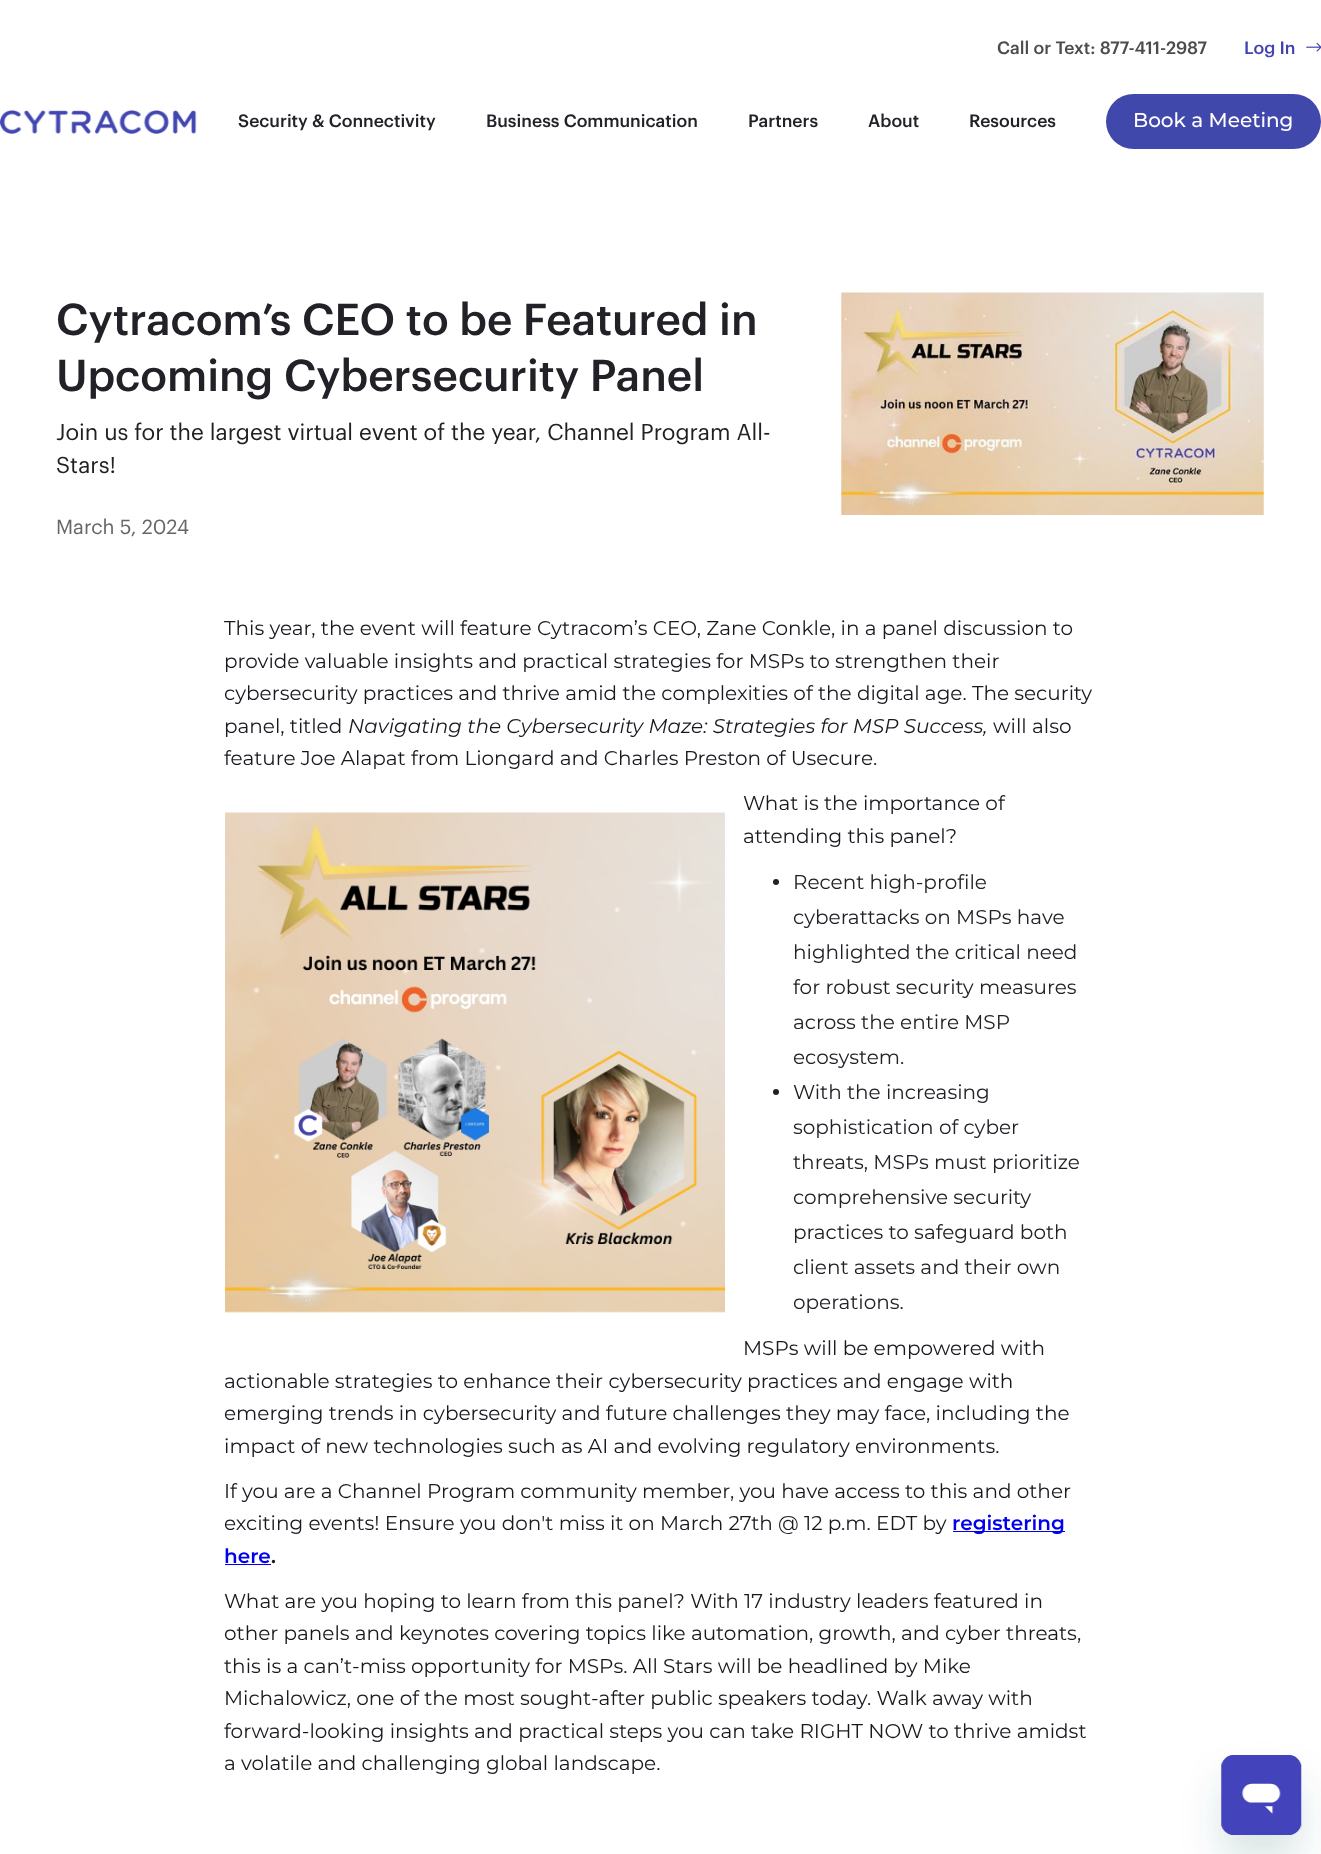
<svg xmlns="http://www.w3.org/2000/svg" width="1321" height="1854" viewBox="0 0 1321 1854">
  <defs>
    <filter id="blur1" x="-50%" y="-200%" width="200%" height="500%"><feGaussianBlur stdDeviation="19"/></filter>
  </defs>
  <rect width="100%" height="100%" fill="#ffffff"/>
  <text x="997" y="54" font-family="Graphik" font-size="17.5" font-weight="500" fill="#4b4c4d">Call or Text: 877-411-2987</text>
  <text x="1244" y="54" font-family="Graphik" font-size="17.5" font-weight="500" fill="#4343b0">Log In</text>
  <image x="1306" y="42" width="15" height="10" href="img1.png"/>
  <image x="0" y="110" width="197" height="24" href="img2.png"/>
  <text x="238" y="127" font-family="Graphik" font-size="17.5" font-weight="500" fill="#212127">Security &amp; Connectivity</text>
  <text x="486" y="127" font-family="Graphik" font-size="17.5" font-weight="500" fill="#212127">Business Communication</text>
  <text x="748" y="127" font-family="Graphik" font-size="17.5" font-weight="500" fill="#212127">Partners</text>
  <text x="868" y="127" font-family="Graphik" font-size="17.5" font-weight="500" fill="#212127">About</text>
  <text x="969" y="127" font-family="Graphik" font-size="17.5" font-weight="500" fill="#212127">Resources</text>
  <rect x="1106" y="94" width="215" height="55" rx="27.5" fill="#4148ac"/>
  <text x="1133" y="127" font-family="Montserrat" font-size="20" font-weight="500" fill="#ffffff">Book a Meeting</text>
  <text x="56" y="335" font-family="Graphik" font-size="43.75" font-weight="500" fill="#212127">Cytracom’s CEO to be Featured in</text>
  <text x="56" y="391" font-family="Graphik" font-size="43.75" font-weight="500" fill="#212127">Upcoming Cybersecurity Panel</text>
  <text x="56" y="440" font-family="Graphik" font-size="22.5" fill="#212121">Join us for the largest virtual event of the year, Channel Program All-</text>
  <text x="56" y="473" font-family="Graphik" font-size="22.5" fill="#212121">Stars!</text>
  <text x="56" y="534" font-family="Graphik" font-size="20" fill="#666666">March 5, 2024</text>
  <image x="841" y="292" width="423" height="223" href="img3.png"/>
  <text x="224" y="635" font-family="Montserrat" font-size="20" fill="#18191f">This year, the event will feature Cytracom’s CEO, Zane Conkle, in a panel discussion to</text>
  <text x="224" y="668" font-family="Montserrat" font-size="20" fill="#18191f">provide valuable insights and practical strategies for MSPs to strengthen their</text>
  <text x="224" y="700" font-family="Montserrat" font-size="20" fill="#18191f">cybersecurity practices and thrive amid the complexities of the digital age. The security</text>
  <text x="224" y="733" font-family="Montserrat" font-size="20" fill="#18191f">panel, titled</text>
  <text x="348" y="733" font-family="Montserrat" font-size="20" font-style="italic" fill="#18191f">Navigating the Cybersecurity Maze: Strategies for MSP Success,</text>
  <text x="993" y="733" font-family="Montserrat" font-size="20" fill="#18191f">will also</text>
  <text x="224" y="765" font-family="Montserrat" font-size="20" fill="#18191f">feature Joe Alapat from Liongard and Charles Preston of Usecure.</text>
  <image x="225" y="812" width="500" height="501" href="img4.png"/>
  <text x="743" y="810" font-family="Montserrat" font-size="20" fill="#18191f">What is the importance of</text>
  <text x="743" y="843" font-family="Montserrat" font-size="20" fill="#18191f">attending this panel?</text>
  <circle cx="776" cy="882" r="3" fill="#212127"/>
  <text x="793" y="889" font-family="Montserrat" font-size="20" fill="#212127">Recent high-profile</text>
  <text x="793" y="924" font-family="Montserrat" font-size="20" fill="#212127">cyberattacks on MSPs have</text>
  <text x="793" y="959" font-family="Montserrat" font-size="20" fill="#212127">highlighted the critical need</text>
  <text x="793" y="994" font-family="Montserrat" font-size="20" fill="#212127">for robust security measures</text>
  <text x="793" y="1029" font-family="Montserrat" font-size="20" fill="#212127">across the entire MSP</text>
  <text x="793" y="1064" font-family="Montserrat" font-size="20" fill="#212127">ecosystem.</text>
  <circle cx="776" cy="1092" r="3" fill="#212127"/>
  <text x="793" y="1099" font-family="Montserrat" font-size="20" fill="#212127">With the increasing</text>
  <text x="793" y="1134" font-family="Montserrat" font-size="20" fill="#212127">sophistication of cyber</text>
  <text x="793" y="1169" font-family="Montserrat" font-size="20" fill="#212127">threats, MSPs must prioritize</text>
  <text x="793" y="1204" font-family="Montserrat" font-size="20" fill="#212127">comprehensive security</text>
  <text x="793" y="1239" font-family="Montserrat" font-size="20" fill="#212127">practices to safeguard both</text>
  <text x="793" y="1274" font-family="Montserrat" font-size="20" fill="#212127">client assets and their own</text>
  <text x="793" y="1309" font-family="Montserrat" font-size="20" fill="#212127">operations.</text>
  <text x="743" y="1355" font-family="Montserrat" font-size="20" fill="#18191f">MSPs will be empowered with</text>
  <text x="224" y="1388" font-family="Montserrat" font-size="20" fill="#18191f">actionable strategies to enhance their cybersecurity practices and engage with</text>
  <text x="224" y="1420" font-family="Montserrat" font-size="20" fill="#18191f">emerging trends in cybersecurity and future challenges they may face, including the</text>
  <text x="224" y="1453" font-family="Montserrat" font-size="20" fill="#18191f">impact of new technologies such as AI and evolving regulatory environments.</text>
  <text x="224" y="1498" font-family="Montserrat" font-size="20" fill="#18191f">If you are a Channel Program community member, you have access to this and other</text>
  <text x="224" y="1530" font-family="Montserrat" font-size="20" fill="#18191f">exciting events! Ensure you don't miss it on March 27th @ 12 p.m. EDT by</text>
  <rect x="953" y="1531" width="112" height="1" fill="#0000ee"/>
  <text x="952" y="1530" font-family="Montserrat" font-size="20" font-weight="600" fill="#0000ee">registering</text>
  <text x="224" y="1563" font-family="Montserrat" font-size="20" font-weight="600" fill="#0000ee">here</text>
  <rect x="225" y="1564" width="46" height="1" fill="#0000ee"/>
  <text x="271" y="1563" font-family="Montserrat" font-size="20" font-weight="600" fill="#18191f">.</text>
  <text x="224" y="1608" font-family="Montserrat" font-size="20" fill="#18191f">What are you hoping to learn from this panel? With 17 industry leaders featured in</text>
  <text x="224" y="1640" font-family="Montserrat" font-size="20" fill="#18191f">other panels and keynotes covering topics like automation, growth, and cyber threats,</text>
  <text x="224" y="1673" font-family="Montserrat" font-size="20" fill="#18191f">this is a can’t-miss opportunity for MSPs. All Stars will be headlined by Mike</text>
  <text x="224" y="1705" font-family="Montserrat" font-size="20" fill="#18191f">Michalowicz, one of the most sought-after public speakers today. Walk away with</text>
  <text x="224" y="1738" font-family="Montserrat" font-size="20" fill="#18191f">forward-looking insights and practical steps you can take RIGHT NOW to thrive amidst</text>
  <text x="224" y="1770" font-family="Montserrat" font-size="20" fill="#18191f">a volatile and challenging global landscape.</text>
  <rect x="1221" y="1780" width="80" height="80" rx="13" fill="#17494d" fill-opacity="0.15" filter="url(#blur1)"/>
  <image x="1221" y="1755" width="81" height="80" href="img5.png"/>
</svg>
